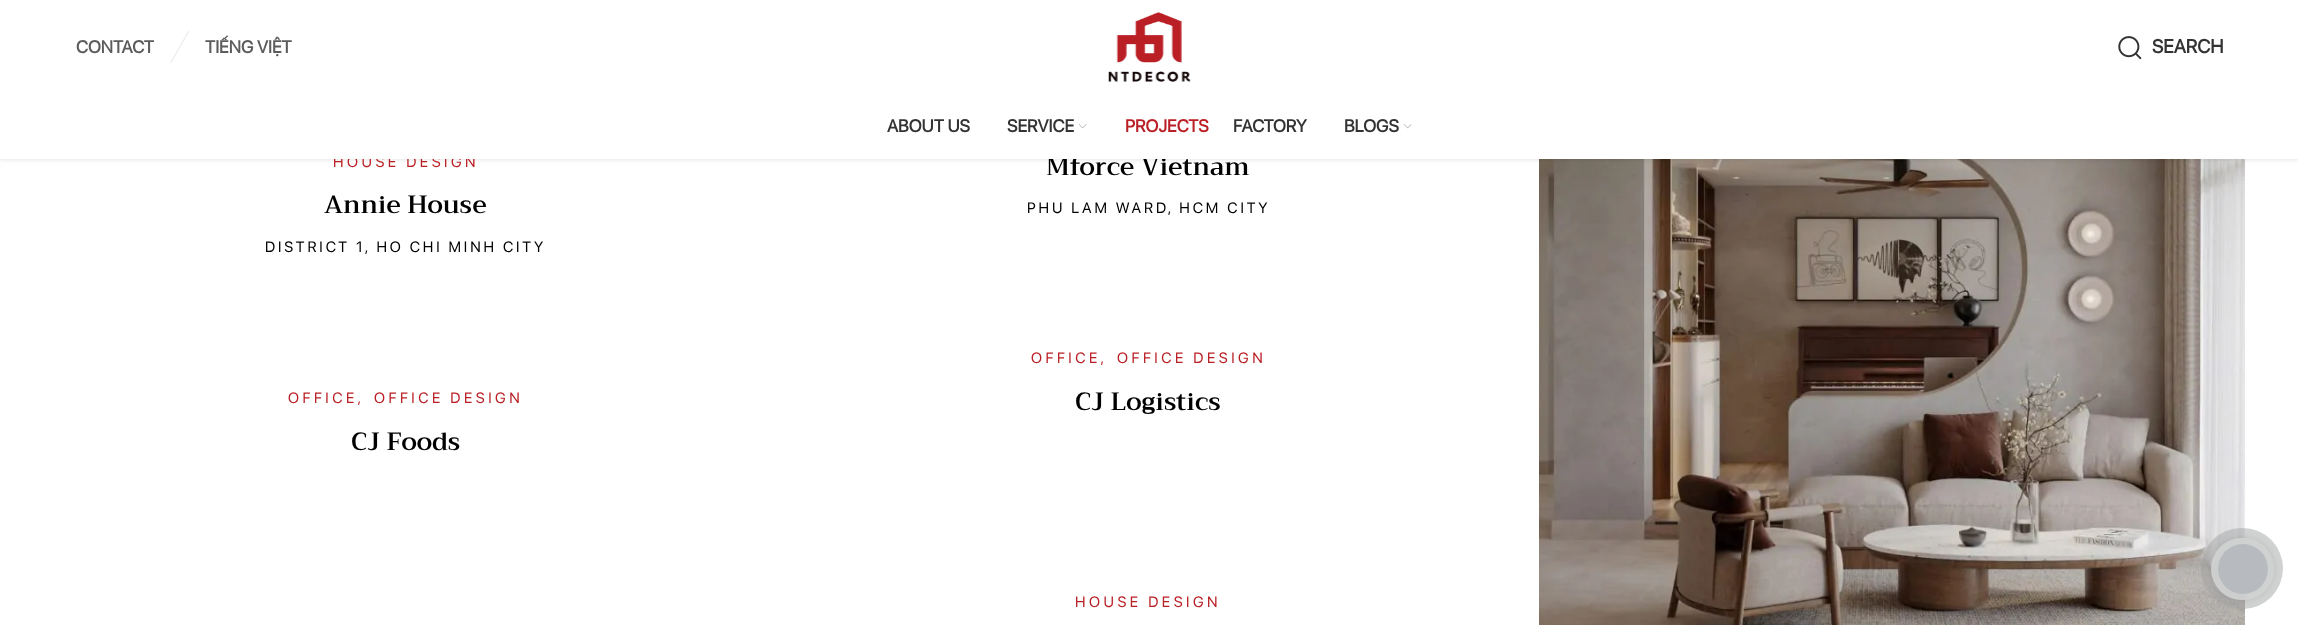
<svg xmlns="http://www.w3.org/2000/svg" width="2298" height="625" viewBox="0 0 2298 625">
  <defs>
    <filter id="blur1" x="-50%" y="-200%" width="200%" height="500%"><feGaussianBlur stdDeviation="2"/></filter>
    <clipPath id="clip1"><path d="M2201 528H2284V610H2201ZM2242 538H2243C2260 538 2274 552 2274 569C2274 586 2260 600 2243 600H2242C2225 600 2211 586 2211 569C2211 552 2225 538 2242 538Z" clip-rule="evenodd"/></clipPath>
    <filter id="blur2" x="-50%" y="-200%" width="200%" height="500%"><feGaussianBlur stdDeviation="3"/></filter>
  </defs>
  <rect width="100%" height="100%" fill="#ffffff"/>
  <image x="1539" y="159" width="706" height="466" href="img4.png"/>
  <rect x="0" y="1" width="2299" height="159" fill="#000000" fill-opacity="0.1" filter="url(#blur1)"/>
  <text x="333" y="167" font-family="SF Pro Display" font-size="15" letter-spacing="3.5" fill="#ba1f25">HOUSE DESIGN</text>
  <text x="1046" y="175" font-family="Trirong" font-size="25" font-weight="600" fill="#000000">Mforce Vietnam</text>
  <rect x="0" y="0" width="2298" height="159" fill="#ffffff"/>
  <text x="76" y="53" font-family="SF Pro Display" font-size="17.5" font-weight="bold" fill="#5c5c5c">CONTACT</text>
  <path d="M188.5 30.5L189.5 31L171 63.5L170 63Z" fill="#ebebeb"/>
  <text x="205" y="53" font-family="SF Pro Display" font-size="17.5" font-weight="bold" fill="#5c5c5c">TIẾNG VIỆT</text>
  <image x="1108" y="12" width="83" height="70" href="img1.png"/>
  <image x="2118" y="36" width="24" height="24" href="img2.png"/>
  <text x="2152" y="53" font-family="SF Pro Display" font-size="19" font-weight="bold" fill="#333333">SEARCH</text>
  <text x="887" y="132" font-family="SF Pro Display" font-size="17.5" font-weight="bold" fill="#333333">ABOUT US</text>
  <text x="1007" y="132" font-family="SF Pro Display" font-size="17.5" font-weight="bold" fill="#333333">SERVICE</text>
  <image x="1078" y="124" width="9" height="5" href="img3.png"/>
  <text x="1125" y="132" font-family="SF Pro Display" font-size="17.5" font-weight="bold" fill="#ba1f25">PROJECTS</text>
  <text x="1233" y="132" font-family="SF Pro Display" font-size="17.5" font-weight="bold" fill="#333333">FACTORY</text>
  <text x="1344" y="132" font-family="SF Pro Display" font-size="17.5" font-weight="bold" fill="#333333">BLOGS</text>
  <image x="1403" y="124" width="9" height="5" href="img3.png"/>
  <text x="324" y="213" font-family="Trirong" font-size="25" font-weight="600" fill="#000000">Annie House</text>
  <text x="265" y="252" font-family="SF Pro Display" font-size="15" letter-spacing="2.9" fill="#000000">DISTRICT 1, HO CHI MINH CITY</text>
  <text x="1027" y="213" font-family="SF Pro Display" font-size="15" letter-spacing="2.9" fill="#000000">PHU LAM WARD, HCM CITY</text>
  <text x="1031" y="363" font-family="SF Pro Display" font-size="15" letter-spacing="3.5" fill="#ba1f25">OFFICE,</text>
  <text x="1117" y="363" font-family="SF Pro Display" font-size="15" letter-spacing="3.5" fill="#ba1f25">OFFICE DESIGN</text>
  <text x="1075" y="410" font-family="Trirong" font-size="25" font-weight="600" fill="#000000">CJ Logistics</text>
  <text x="288" y="403" font-family="SF Pro Display" font-size="15" letter-spacing="3.5" fill="#ba1f25">OFFICE,</text>
  <text x="374" y="403" font-family="SF Pro Display" font-size="15" letter-spacing="3.5" fill="#ba1f25">OFFICE DESIGN</text>
  <text x="351" y="450" font-family="Trirong" font-size="25" font-weight="600" fill="#000000">CJ Foods</text>
  <text x="1075" y="607" font-family="SF Pro Display" font-size="15" letter-spacing="3.5" fill="#ba1f25">HOUSE DESIGN</text>
  <g clip-path="url(#clip1)">
    <rect x="2211" y="538" width="63" height="62" rx="31" fill="#000000" fill-opacity="0.17" filter="url(#blur2)"/>
  </g>
  <rect x="2211" y="538" width="63" height="62" rx="31" fill="#ffffff" fill-opacity="0.9"/>
  <rect x="2201" y="528" width="82" height="81" rx="40.5" fill="#a2a3a4" fill-opacity="0.5"/>
  <circle cx="2243" cy="569" r="25" fill="#b7bbc0"/>
</svg>
